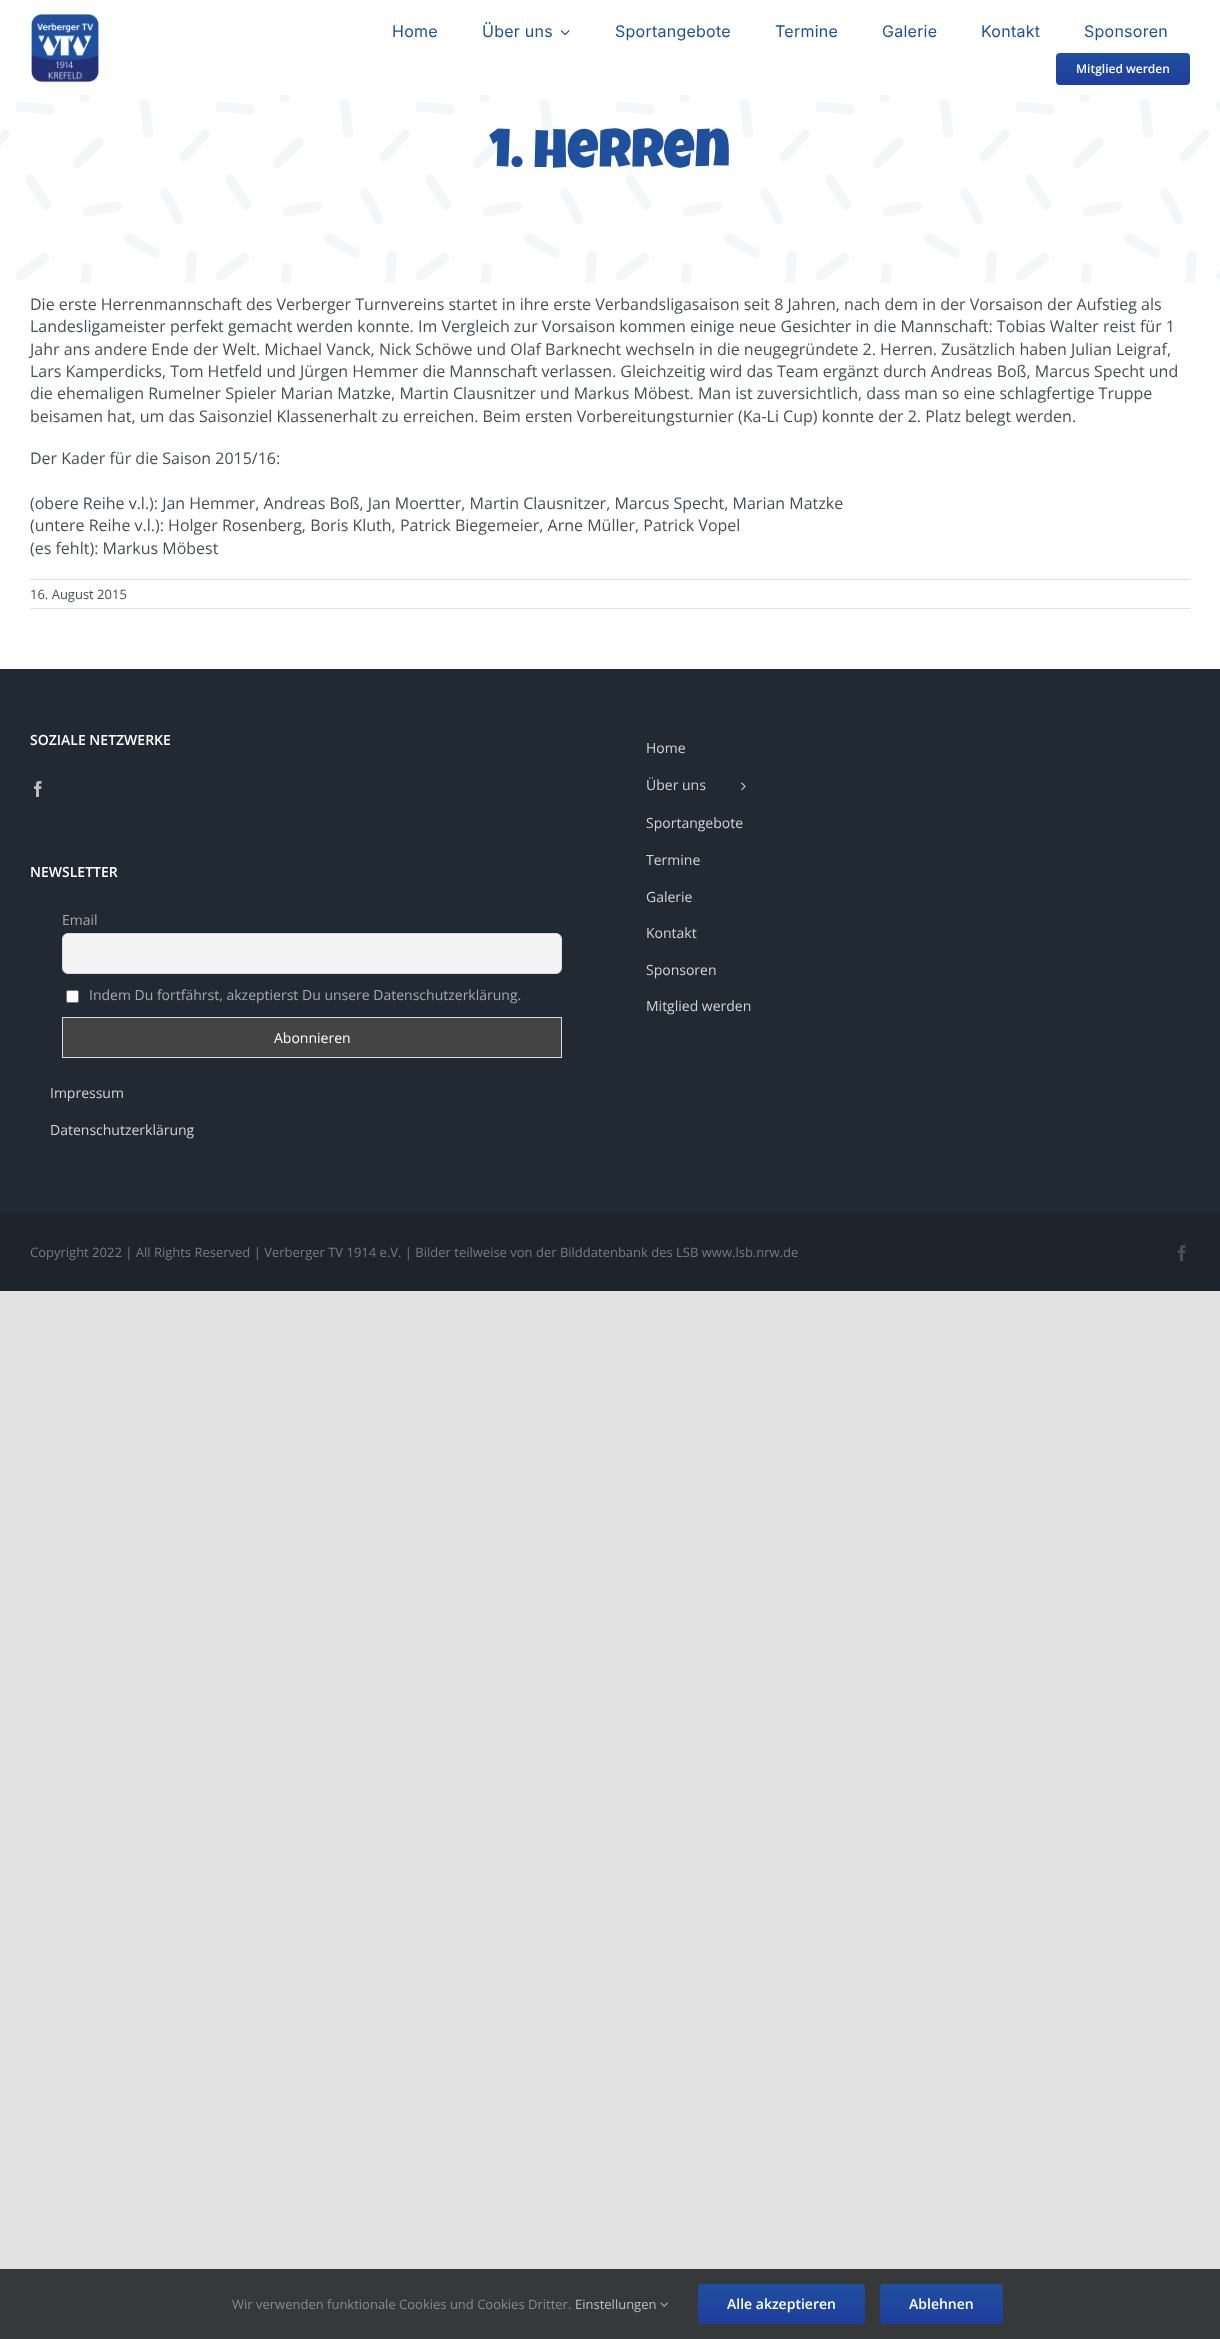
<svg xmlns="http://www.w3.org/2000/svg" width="1220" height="2339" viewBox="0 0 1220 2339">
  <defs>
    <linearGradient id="g1" gradientUnits="userSpaceOnUse" x1="1123" y1="53" x2="1123" y2="85"><stop offset="0" stop-color="#1f509e"/><stop offset="1" stop-color="#1f3d9e"/></linearGradient>
    <linearGradient id="g2" gradientUnits="userSpaceOnUse" x1="782" y1="2284" x2="782" y2="2324"><stop offset="0" stop-color="#1f509e"/><stop offset="1" stop-color="#1f3d9e"/></linearGradient>
    <linearGradient id="g3" gradientUnits="userSpaceOnUse" x1="942" y1="2284" x2="942" y2="2324"><stop offset="0" stop-color="#1f509e"/><stop offset="1" stop-color="#1f3d9e"/></linearGradient>
  </defs>
  <rect width="100%" height="100%" fill="#e2e2e2"/>
  <rect x="0" y="0" width="1220" height="669" fill="#ffffff"/>
  <image x="31" y="14" width="69" height="69" href="img1.png"/>
  <text x="392" y="37" font-family="Inter" font-size="16" letter-spacing="0.25" fill="#1f509e">Home</text>
  <text x="482" y="37" font-family="Inter" font-size="16" letter-spacing="0.25" fill="#1f509e">Über uns</text>
  <image x="560" y="30" width="10" height="6" href="img2.png"/>
  <text x="615" y="37" font-family="Inter" font-size="16" letter-spacing="0.25" fill="#1f509e">Sportangebote</text>
  <text x="775" y="37" font-family="Inter" font-size="16" letter-spacing="0.25" fill="#1f509e">Termine</text>
  <text x="882" y="37" font-family="Inter" font-size="16" letter-spacing="0.25" fill="#1f509e">Galerie</text>
  <text x="981" y="37" font-family="Inter" font-size="16" letter-spacing="0.25" fill="#1f509e">Kontakt</text>
  <text x="1084" y="37" font-family="Inter" font-size="16" letter-spacing="0.25" fill="#1f509e">Sponsoren</text>
  <rect x="1056" y="53" width="134" height="32" rx="4" fill="url(#g1)"/>
  <text x="1076" y="73" font-family="Open Sans" font-size="12" font-weight="600" fill="#ffffff">Mitglied werden</text>
  <image x="0" y="95" width="1220" height="188" href="img3.png"/>
  <text x="490" y="167" font-family="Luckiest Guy" font-size="54" fill="#1f509e">1. Herren</text>
  <text x="30" y="310" font-family="Open Sans" font-size="16" fill="#4a4e57">Die erste Herrenmannschaft des Verberger Turnvereins startet in ihre erste Verbandsligasaison seit 8 Jahren, nach dem in der Vorsaison der Aufstieg als</text>
  <text x="30" y="332" font-family="Open Sans" font-size="16" fill="#4a4e57">Landesligameister perfekt gemacht werden konnte. Im Vergleich zur Vorsaison kommen einige neue Gesichter in die Mannschaft: Tobias Walter reist für 1</text>
  <text x="30" y="355" font-family="Open Sans" font-size="16" fill="#4a4e57">Jahr ans andere Ende der Welt. Michael Vanck, Nick Schöwe und Olaf Barknecht wechseln in die neugegründete 2. Herren. Zusätzlich haben Julian Leigraf,</text>
  <text x="30" y="377" font-family="Open Sans" font-size="16" fill="#4a4e57">Lars Kamperdicks, Tom Hetfeld und Jürgen Hemmer die Mannschaft verlassen. Gleichzeitig wird das Team ergänzt durch Andreas Boß, Marcus Specht und</text>
  <text x="30" y="399" font-family="Open Sans" font-size="16" fill="#4a4e57">die ehemaligen Rumelner Spieler Marian Matzke, Martin Clausnitzer und Markus Möbest. Man ist zuversichtlich, dass man so eine schlagfertige Truppe</text>
  <text x="30" y="422" font-family="Open Sans" font-size="16" fill="#4a4e57">beisamen hat, um das Saisonziel Klassenerhalt zu erreichen. Beim ersten Vorbereitungsturnier (Ka-Li Cup) konnte der 2. Platz belegt werden.</text>
  <text x="30" y="464" font-family="Open Sans" font-size="16" fill="#4a4e57">Der Kader für die Saison 2015/16:</text>
  <text x="30" y="509" font-family="Open Sans" font-size="16" fill="#4a4e57">(obere Reihe v.l.): Jan Hemmer, Andreas Boß, Jan Moertter, Martin Clausnitzer, Marcus Specht, Marian Matzke</text>
  <text x="30" y="531" font-family="Open Sans" font-size="16" fill="#4a4e57">(untere Reihe v.l.): Holger Rosenberg, Boris Kluth, Patrick Biegemeier, Arne Müller, Patrick Vopel</text>
  <text x="30" y="554" font-family="Open Sans" font-size="16" fill="#4a4e57">(es fehlt): Markus Möbest</text>
  <rect x="30" y="579" width="1160" height="1" fill="#e2e2e2"/>
  <rect x="30" y="608" width="1160" height="1" fill="#e2e2e2"/>
  <text x="30" y="599" font-family="Open Sans" font-size="13" fill="#4a4e57">16. August 2015</text>
  <rect x="0" y="669" width="1220" height="543" fill="#212934"/>
  <text x="30" y="745" font-family="Open Sans" font-size="14" font-weight="600" fill="#ffffff">SOZIALE NETZWERKE</text>
  <image x="34" y="781" width="8" height="16" href="img4.png"/>
  <text x="30" y="877" font-family="Open Sans" font-size="14" font-weight="600" fill="#ffffff">NEWSLETTER</text>
  <text x="62" y="925" font-family="Open Sans" font-size="14" fill="#a6a9ae">Email</text>
  <rect x="62.5" y="933.5" width="499" height="40" rx="5.5" fill="#f4f4f4" stroke="#dddddd"/>
  <rect x="66.5" y="990.5" width="12" height="12" rx="1.5" fill="#ffffff" stroke="#767676"/>
  <text x="89" y="1000" font-family="Open Sans" font-size="14" fill="#a6a9ae">Indem Du fortfährst, akzeptierst Du unsere Datenschutzerklärung.</text>
  <rect x="62.5" y="1017.5" width="499" height="40" fill="#444444" stroke="#dddddd"/>
  <text x="274" y="1043" font-family="Open Sans" font-size="14" fill="#ffffff">Abonnieren</text>
  <text x="646" y="753" font-family="Open Sans" font-size="14" fill="#d3d4d6">Home</text>
  <text x="646" y="790" font-family="Open Sans" font-size="14" fill="#d3d4d6">Über uns</text>
  <image x="741" y="782" width="5" height="9" href="img5.png"/>
  <text x="646" y="828" font-family="Open Sans" font-size="14" fill="#d3d4d6">Sportangebote</text>
  <text x="646" y="865" font-family="Open Sans" font-size="14" fill="#d3d4d6">Termine</text>
  <text x="646" y="902" font-family="Open Sans" font-size="14" fill="#d3d4d6">Galerie</text>
  <text x="646" y="938" font-family="Open Sans" font-size="14" fill="#d3d4d6">Kontakt</text>
  <text x="646" y="975" font-family="Open Sans" font-size="14" fill="#d3d4d6">Sponsoren</text>
  <text x="646" y="1011" font-family="Open Sans" font-size="14" fill="#d3d4d6">Mitglied werden</text>
  <text x="50" y="1098" font-family="Open Sans" font-size="14" fill="#d3d4d6">Impressum</text>
  <text x="50" y="1135" font-family="Open Sans" font-size="14" fill="#d3d4d6">Datenschutzerklärung</text>
  <rect x="0" y="1212" width="1220" height="79" fill="#1d242d"/>
  <text x="30" y="1257" font-family="Open Sans" font-size="13" fill="#777c81">Copyright 2022 | All Rights Reserved | Verberger TV 1914 e.V. | Bilder teilweise von der Bilddatenbank des LSB www.lsb.nrw.de</text>
  <image x="1178" y="1245" width="8" height="16" href="img6.png"/>
  <rect x="0" y="2269" width="1220" height="70" fill="#363839"/>
  <text x="232" y="2309" font-family="Open Sans" font-size="13" fill="#8c8989">Wir verwenden funktionale Cookies und Cookies Dritter.</text>
  <text x="575" y="2309" font-family="Open Sans" font-size="13" fill="#bfbfbf">Einstellungen</text>
  <image x="660" y="2302" width="8" height="5" href="img7.png"/>
  <rect x="698" y="2284" width="167" height="40" rx="4" fill="url(#g2)"/>
  <text x="727" y="2309" font-family="Open Sans" font-size="14" font-weight="600" fill="#ffffff">Alle akzeptieren</text>
  <rect x="880" y="2284" width="123" height="40" rx="4" fill="url(#g3)"/>
  <text x="909" y="2309" font-family="Open Sans" font-size="14" font-weight="600" fill="#ffffff">Ablehnen</text>
</svg>
